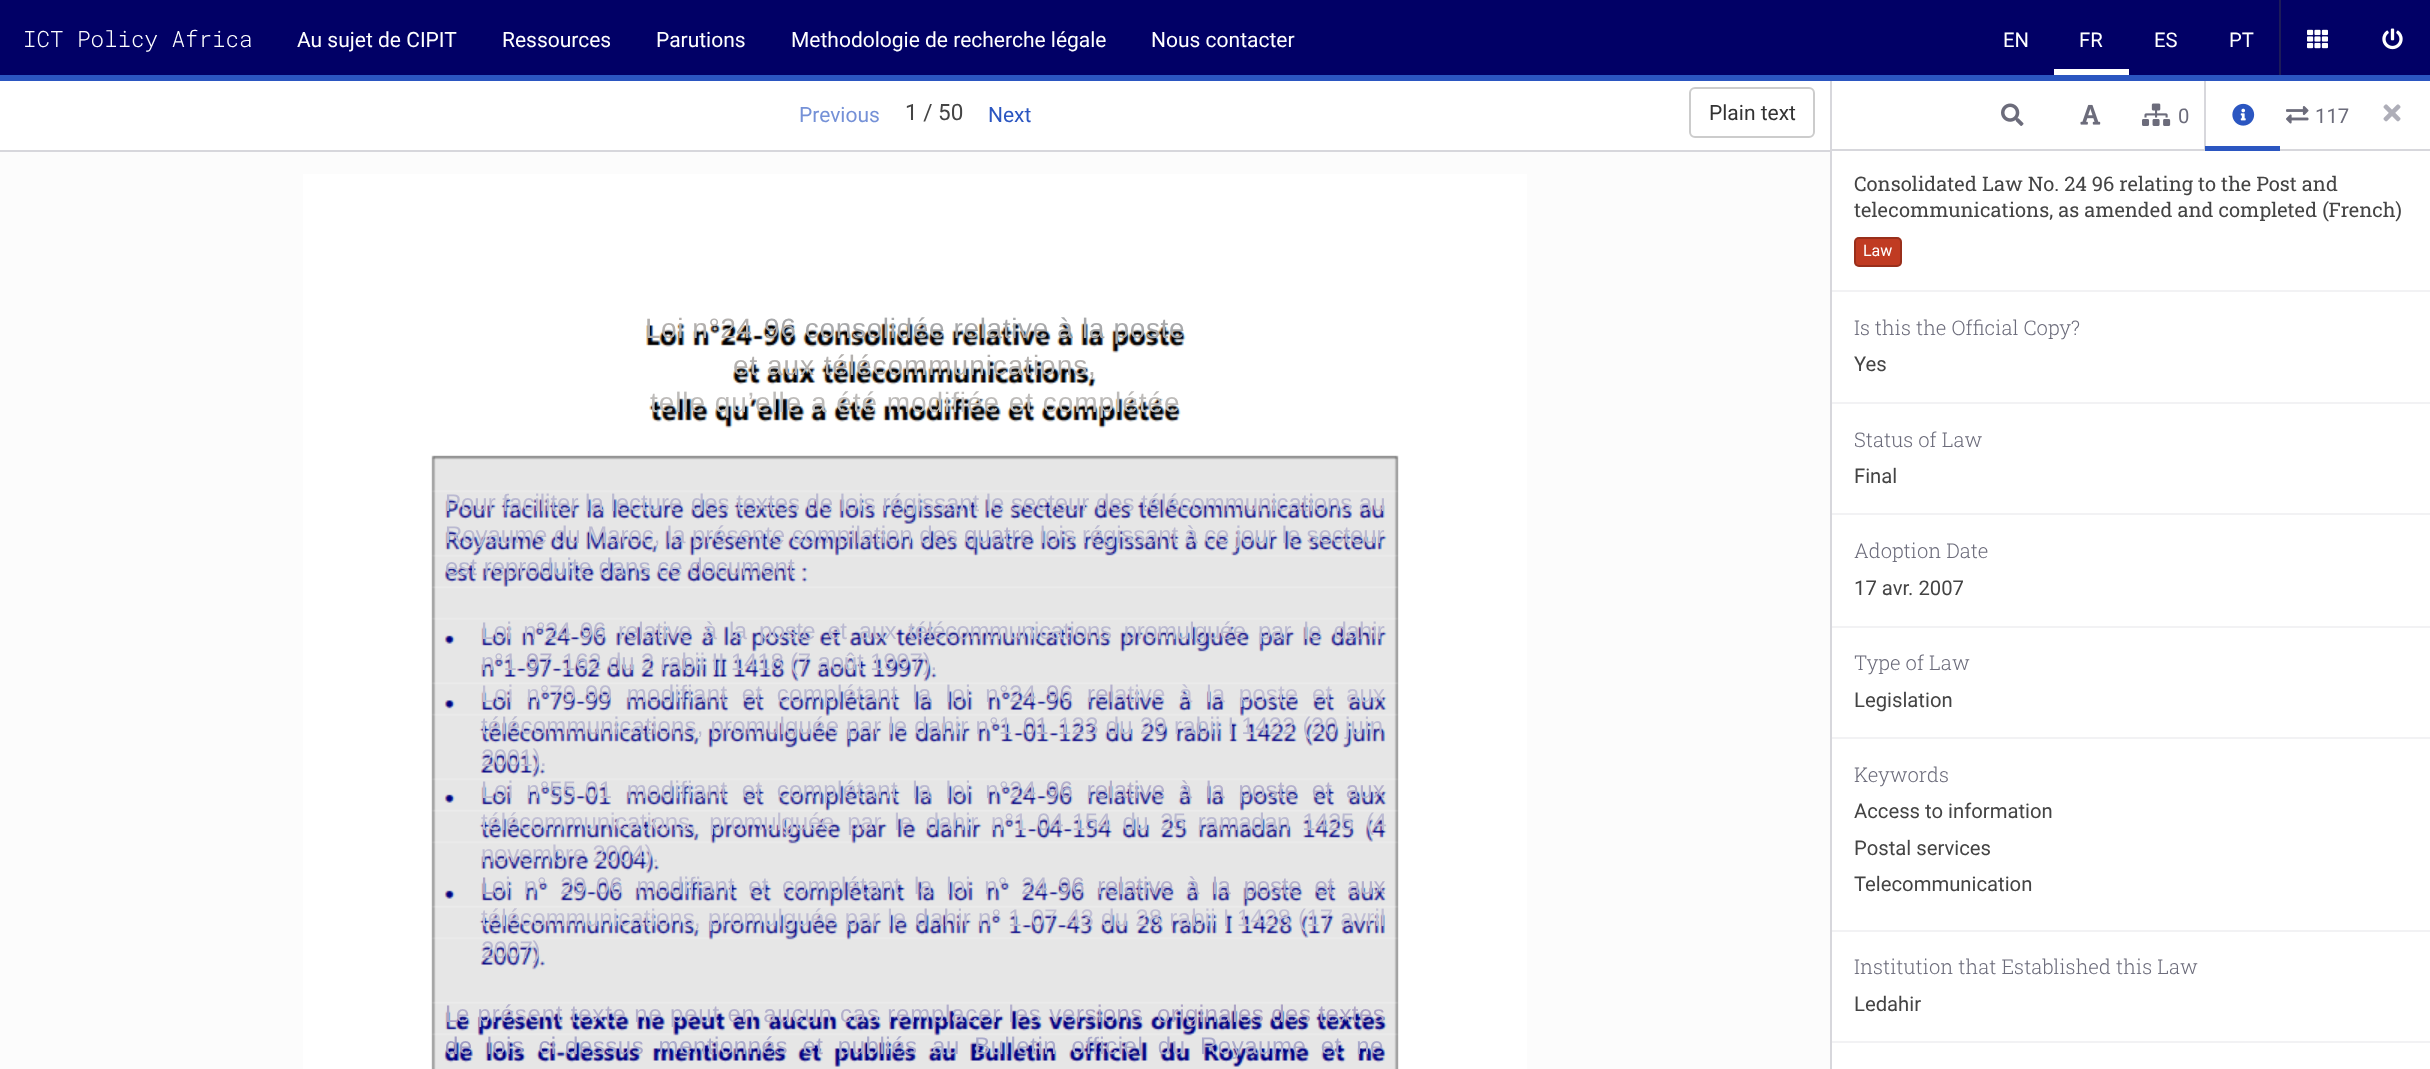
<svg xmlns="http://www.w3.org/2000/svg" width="2430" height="1069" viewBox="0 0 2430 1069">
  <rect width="100%" height="100%" fill="#fcfcfc"/>
  <rect x="1832" y="81" width="598" height="988" fill="#ffffff"/>
  <rect x="2204" y="74" width="2" height="75" fill="#d7d7dc"/>
  <rect x="0" y="0" width="2430" height="75" fill="#010066"/>
  <text x="23" y="47" font-family="Roboto Mono" font-size="22.5" font-weight="300" fill="#ffffff">ICT Policy Africa</text>
  <text x="297" y="47" font-family="Roboto" font-size="21" fill="#ffffff">Au sujet de CIPIT</text>
  <text x="502" y="47" font-family="Roboto" font-size="21" fill="#ffffff">Ressources</text>
  <text x="656" y="47" font-family="Roboto" font-size="21" fill="#ffffff">Parutions</text>
  <text x="791" y="47" font-family="Roboto" font-size="21" fill="#ffffff">Methodologie de recherche légale</text>
  <text x="1151" y="47" font-family="Roboto" font-size="21" fill="#ffffff">Nous contacter</text>
  <rect x="2279" y="0" width="2" height="75" fill="#1c1b58"/>
  <text x="2003" y="47" font-family="Roboto" font-size="20.25" fill="#ffffff">EN</text>
  <rect x="2054" y="69" width="75" height="6" fill="#ffffff"/>
  <text x="2079" y="47" font-family="Roboto" font-size="20.25" fill="#ffffff">FR</text>
  <text x="2154" y="47" font-family="Roboto" font-size="20.25" fill="#ffffff">ES</text>
  <text x="2229" y="47" font-family="Roboto" font-size="20.25" fill="#ffffff">PT</text>
  <image x="2307" y="29" width="21" height="20" href="img1.png"/>
  <image x="2382" y="28" width="21" height="22" href="img2.png"/>
  <rect x="0" y="81" width="1830" height="69" fill="#ffffff"/>
  <rect x="0" y="150" width="1830" height="2" fill="#d7d7dc"/>
  <text x="799" y="122" font-family="Roboto" font-size="21" fill="#7591d7">Previous</text>
  <text x="905" y="120" font-family="Roboto" font-size="22.5" fill="#444444">1 / 50</text>
  <text x="988" y="122" font-family="Roboto" font-size="21" fill="#2b56c1">Next</text>
  <rect x="1690" y="88" width="124" height="49" rx="5" fill="none" stroke="#cccccc" stroke-width="2"/>
  <text x="1709" y="120" font-family="Roboto" font-size="21" fill="#333333">Plain text</text>
  <rect x="1830" y="75" width="2" height="994" fill="#d7d7dc"/>
  <rect x="1832" y="149" width="598" height="2" fill="#d7d7dc"/>
  <image x="2001" y="103" width="23" height="23" href="img3.png"/>
  <image x="2080" y="104" width="21" height="21" href="img4.png"/>
  <image x="2142" y="103" width="29" height="23" href="img5.png"/>
  <text x="2178" y="123" font-family="Roboto" font-size="20.25" fill="#6c6c7b">0</text>
  <image x="2232" y="103" width="23" height="23" href="img6.png"/>
  <rect x="2205" y="146" width="75" height="5" fill="#2b56c1"/>
  <image x="2286" y="106" width="23" height="18" href="img7.png"/>
  <text x="2315" y="123" font-family="Roboto" font-size="20.25" fill="#6c6c7b">117</text>
  <image x="2383" y="104" width="18" height="18" href="img8.png"/>
  <text x="1854" y="191" font-family="Roboto Slab" font-size="20.05" fill="#444444">Consolidated Law No. 24 96 relating to the Post and</text>
  <text x="1854" y="217" font-family="Roboto Slab" font-size="20.05" fill="#444444">telecommunications, as amended and completed (French)</text>
  <rect x="1854" y="237" width="48" height="30" rx="5" fill="#c03b22"/>
  <rect x="1855" y="238" width="46" height="28" rx="4" fill="none" stroke="#000000" stroke-opacity="0.2" stroke-width="2"/>
  <text x="1863" y="256" font-family="Roboto" font-size="16" fill="#ffffff">Law</text>
  <rect x="1832" y="290" width="598" height="2" fill="#f2f2f4"/>
  <text x="1854" y="335" font-family="Roboto Slab" font-size="20.25" font-weight="300" fill="#6c6c7b">Is this the Official Copy?</text>
  <text x="1854" y="371" font-family="Roboto" font-size="20.25" fill="#444444">Yes</text>
  <rect x="1832" y="402" width="598" height="2" fill="#f2f2f4"/>
  <text x="1854" y="447" font-family="Roboto Slab" font-size="20.25" font-weight="300" fill="#6c6c7b">Status of Law</text>
  <text x="1854" y="483" font-family="Roboto" font-size="20.25" fill="#444444">Final</text>
  <rect x="1832" y="513" width="598" height="2" fill="#f2f2f4"/>
  <text x="1854" y="558" font-family="Roboto Slab" font-size="20.25" font-weight="300" fill="#6c6c7b">Adoption Date</text>
  <text x="1854" y="595" font-family="Roboto" font-size="20.25" fill="#444444">17 avr. 2007</text>
  <rect x="1832" y="626" width="598" height="2" fill="#f2f2f4"/>
  <text x="1854" y="670" font-family="Roboto Slab" font-size="20.25" font-weight="300" fill="#6c6c7b">Type of Law</text>
  <text x="1854" y="707" font-family="Roboto" font-size="20.25" fill="#444444">Legislation</text>
  <rect x="1832" y="737" width="598" height="2" fill="#f2f2f4"/>
  <text x="1854" y="782" font-family="Roboto Slab" font-size="20.25" font-weight="300" fill="#6c6c7b">Keywords</text>
  <text x="1854" y="818" font-family="Roboto" font-size="20.25" fill="#444444">Access to information</text>
  <text x="1854" y="855" font-family="Roboto" font-size="20.25" fill="#444444">Postal services</text>
  <text x="1854" y="891" font-family="Roboto" font-size="20.25" fill="#444444">Telecommunication</text>
  <rect x="1832" y="930" width="598" height="2" fill="#f2f2f4"/>
  <text x="1854" y="974" font-family="Roboto Slab" font-size="20.25" font-weight="300" fill="#6c6c7b">Institution that Established this Law</text>
  <text x="1854" y="1011" font-family="Roboto" font-size="20.25" fill="#444444">Ledahir</text>
  <rect x="1832" y="1041" width="598" height="2" fill="#f2f2f4"/>
  <rect x="303" y="174" width="1224" height="895" fill="#ffffff"/>
  <image x="431" y="323" width="968" height="746" href="img9.png"/>
  <text x="645" y="338" font-family="Liberation Sans" font-size="28.1" letter-spacing="0.5" fill="#b3b0ae">Loi n°24</text>
  <text x="764" y="338" font-family="Liberation Sans" font-size="28.1" letter-spacing="0.6" fill="#a8a9ab">96 consolidée relative à la poste</text>
  <text x="733" y="375" font-family="Liberation Sans" font-size="28.1" letter-spacing="0.9" fill="#b3b0ae">et aux télécommunications,</text>
  <text x="650" y="412" font-family="Liberation Sans" font-size="28.1" letter-spacing="0.9" fill="#bdbbb9">telle qu’elle a été modifiée et complétée</text>
  <text x="445" y="511" font-family="Liberation Sans" font-size="24" fill="#bab9d1">Pour faciliter la lecture</text>
  <text x="691" y="511" font-family="Liberation Sans" font-size="24" letter-spacing="-0.05" fill="#bab9d1">des textes de lois régissant le secteur des télécommunications au</text>
  <text x="445" y="543" font-family="Liberation Sans" font-size="24" letter-spacing="-0.05" fill="#bab9d1">Royaume du Maroc, la présente compilation des</text>
  <text x="964" y="543" font-family="Liberation Sans" font-size="24" fill="#b3afcc">qua</text>
  <text x="1004" y="543" font-family="Liberation Sans" font-size="24" letter-spacing="0.5" fill="#b3afcc">tre</text>
  <text x="1040" y="543" font-family="Liberation Sans" font-size="24" letter-spacing="-0.15" fill="#bab9d1">lois régissant à ce jour le secteur</text>
  <text x="445" y="575" font-family="Liberation Sans" font-size="24" fill="#b4b5d0">est reproduite dans ce document</text>
  <text x="481" y="639" font-family="Liberation Sans" font-size="24" letter-spacing="-0.6" fill="#bab9d1" xml:space="preserve">Loi  n°24</text>
  <text x="580" y="639" font-family="Liberation Sans" font-size="24" letter-spacing="-0.5" fill="#bab9d1" xml:space="preserve">96  relative  à  la  poste  et  aux  télécommunications  promulguée  par  le  dahir</text>
  <text x="481" y="670" font-family="Liberation Sans" font-size="24" letter-spacing="-0.25" fill="#bab9d1">n°1</text>
  <text x="526" y="670" font-family="Liberation Sans" font-size="24" fill="#b3afcc">97</text>
  <text x="562" y="670" font-family="Liberation Sans" font-size="24" letter-spacing="-0.18" fill="#bab9d1">162 du 2 rabii II 1418 (7 août 1997).</text>
  <text x="481" y="702" font-family="Liberation Sans" font-size="24" fill="#c0bed4" xml:space="preserve">Loi  n°79</text>
  <text x="585" y="702" font-family="Liberation Sans" font-size="24" letter-spacing="0.4" fill="#bab9d1" xml:space="preserve">99  modifiant  et  complétant  la  loi  n°24</text>
  <text x="1046" y="702" font-family="Liberation Sans" font-size="24" letter-spacing="0.25" fill="#b3afcc" xml:space="preserve">96  rel</text>
  <text x="1114" y="702" font-family="Liberation Sans" font-size="24" letter-spacing="0.15" fill="#c0bed4" xml:space="preserve">ative  à  la  poste  et  aux</text>
  <text x="481" y="734" font-family="Liberation Sans" font-size="24" letter-spacing="0.2" fill="#bab9d1">télécommunications, promulguée par le dahir n°1</text>
  <text x="1023" y="734" font-family="Liberation Sans" font-size="24" letter-spacing="-1" fill="#b3afcc">01</text>
  <text x="1058" y="734" font-family="Liberation Sans" font-size="24" letter-spacing="0.25" fill="#bab9d1">123 du 29 rabii I 1422 (20 juin</text>
  <text x="481" y="766" font-family="Liberation Sans" font-size="24" letter-spacing="-0.5" fill="#bab9d1">2001).</text>
  <text x="481" y="798" font-family="Liberation Sans" font-size="24" fill="#bab9d1" xml:space="preserve">Loi  n°55</text>
  <text x="585" y="798" font-family="Liberation Sans" font-size="24" letter-spacing="0.4" fill="#bab9d1" xml:space="preserve">01  modifiant  et  complétant  la  loi  n°24</text>
  <text x="1046" y="798" font-family="Liberation Sans" font-size="24" letter-spacing="0.15" fill="#b3afcc" xml:space="preserve">96  relative  à  la  poste  et  aux</text>
  <text x="481" y="830" font-family="Liberation Sans" font-size="24" letter-spacing="-0.18" fill="#c0bed4" xml:space="preserve">télécommunications,  promulguée  par  le  dahir  n°1</text>
  <text x="1037" y="830" font-family="Liberation Sans" font-size="24" fill="#bab9d1">04</text>
  <text x="1072" y="830" font-family="Liberation Sans" font-size="24" letter-spacing="-0.6" fill="#bab9d1" xml:space="preserve">154  du  25  ra</text>
  <text x="1219" y="830" font-family="Liberation Sans" font-size="24" letter-spacing="-0.5" fill="#bab9d1" xml:space="preserve">madan  1425  (4</text>
  <text x="481" y="862" font-family="Liberation Sans" font-size="24" letter-spacing="-0.25" fill="#c0bed4">novembre 2004).</text>
  <text x="481" y="894" font-family="Liberation Sans" font-size="24" fill="#aca3c5">L</text>
  <text x="492" y="894" font-family="Liberation Sans" font-size="24" letter-spacing="-0.05" fill="#bab9d1" xml:space="preserve">oi  n°  29</text>
  <text x="596" y="894" font-family="Liberation Sans" font-size="24" letter-spacing="0.1" fill="#bab9d1" xml:space="preserve">06  modifiant  et  complétant  la  loi  n°  24</text>
  <text x="1058" y="894" font-family="Liberation Sans" font-size="24" letter-spacing="-0.18" fill="#b3afcc" xml:space="preserve">96  relative  à  la  poste  et  aux</text>
  <text x="481" y="926" font-family="Liberation Sans" font-size="24" letter-spacing="0.1" fill="#c0bed4">télécommunications</text>
  <text x="694" y="926" font-family="Liberation Sans" font-size="24" letter-spacing="0.3" fill="#c0bed4">, promulguée par le</text>
  <text x="915" y="926" font-family="Liberation Sans" font-size="24" fill="#b3afcc">d</text>
  <text x="930" y="926" font-family="Liberation Sans" font-size="24" letter-spacing="0.25" fill="#bab9d1">ahir n° 1</text>
  <text x="1031" y="926" font-family="Liberation Sans" font-size="24" fill="#c0bed4">07</text>
  <text x="1067" y="926" font-family="Liberation Sans" font-size="24" letter-spacing="0.25" fill="#c0bed4">43 du 28 rabii I 1428 (17 avril</text>
  <text x="481" y="958" font-family="Liberation Sans" font-size="24" letter-spacing="-0.5" fill="#bab9d1">2007)</text>
  <text x="445" y="1022" font-family="Liberation Sans" font-size="24" fill="#aca3c5">L</text>
  <text x="456" y="1022" font-family="Liberation Sans" font-size="24" letter-spacing="0.8" fill="#b3afcc">e présent texte ne peut en aucun cas remplacer les ve</text>
  <text x="1076" y="1022" font-family="Liberation Sans" font-size="24" letter-spacing="0.45" fill="#aca3c5" xml:space="preserve">rsions  originales des textes</text>
  <text x="445" y="1054" font-family="Liberation Sans" font-size="24" letter-spacing="0.4" fill="#a09dc4" xml:space="preserve">de  lois  ci</text>
  <text x="565" y="1054" font-family="Liberation Sans" font-size="24" letter-spacing="0.53" fill="#a9a9ca" xml:space="preserve">dessus  mentionnés  et  publiés  au  Bulletin  officiel  du  Royaume  et  ne</text>
  <rect x="0" y="75" width="2430" height="6" fill="#2b56c1"/>
</svg>
